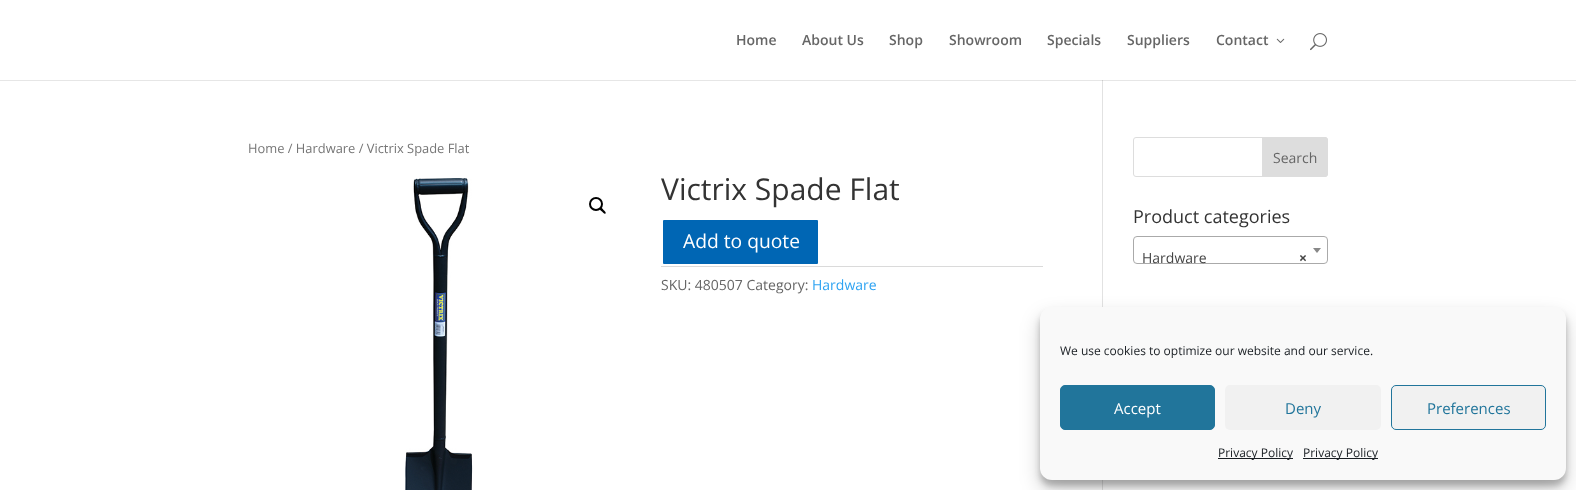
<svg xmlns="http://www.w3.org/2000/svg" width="1576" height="490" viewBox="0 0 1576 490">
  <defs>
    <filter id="blur1" x="-50%" y="-200%" width="200%" height="500%"><feGaussianBlur stdDeviation="3"/></filter>
    <filter id="blur2" x="-50%" y="-200%" width="200%" height="500%"><feGaussianBlur stdDeviation="10"/></filter>
  </defs>
  <rect width="100%" height="100%" fill="#ffffff"/>
  <rect x="0" y="80" width="1576" height="1" fill="#e6e6e6"/>
  <rect x="1102" y="79" width="1" height="411" fill="#e2e2e2"/>
  <rect x="1102" y="79" width="1" height="1" fill="#ffffff"/>
  <text x="736" y="45" font-family="Open Sans" font-size="14" font-weight="600" fill="#666666">Home</text>
  <text x="802" y="45" font-family="Open Sans" font-size="14" font-weight="600" fill="#666666">About Us</text>
  <text x="889" y="45" font-family="Open Sans" font-size="14" font-weight="600" fill="#666666">Shop</text>
  <text x="949" y="45" font-family="Open Sans" font-size="14" font-weight="600" fill="#666666">Showroom</text>
  <text x="1047" y="45" font-family="Open Sans" font-size="14" font-weight="600" fill="#666666">Specials</text>
  <text x="1127" y="45" font-family="Open Sans" font-size="14" font-weight="600" fill="#666666">Suppliers</text>
  <text x="1216" y="45" font-family="Open Sans" font-size="14" font-weight="600" fill="#666666">Contact</text>
  <image x="1276" y="38" width="9" height="5" href="img1.png"/>
  <image x="1310" y="33" width="17" height="18" href="img2.png"/>
  <rect x="1102" y="80" width="1" height="1" fill="#cbcbcb"/>
  <text x="248" y="153" font-family="Open Sans" font-size="12.9" fill="#767676">Home / Hardware / Victrix Spade Flat</text>
  <image x="405" y="178" width="68" height="312" href="img3.png"/>
  <circle cx="596" cy="204" r="6" fill="none" stroke="#000000" stroke-width="2"/>
  <path d="M600 208C601 206.5 603 209.5 603.5 210C604 210.5 606.5 212.5 605.5 213.5C604.5 214.5 602.5 212 602 211.5C601.5 211 598.5 209 600 208Z" fill="#000000"/>
  <text x="661" y="200" font-family="Open Sans" font-size="30" fill="#333333">Victrix Spade Flat</text>
  <rect x="662" y="219" width="157" height="46" rx="2" fill="#0066b4" stroke="#ffffff" stroke-width="2"/>
  <text x="683" y="248" font-family="Open Sans" font-size="19.25" fill="#ffffff">Add to quote</text>
  <rect x="661" y="266" width="382" height="1" fill="#dadada"/>
  <text x="661" y="290" font-family="Open Sans" font-size="14" fill="#666666">SKU: 480507 Category:</text>
  <text x="812" y="290" font-family="Open Sans" font-size="14" fill="#2ea3f2">Hardware</text>
  <rect x="1133.5" y="137.5" width="194" height="39" rx="2.5" fill="none" stroke="#dddddd"/>
  <path d="M1262.5 137.5H1325C1326.5 137.5 1327.5 138.5 1327.5 140V174C1327.5 175.5 1326.5 176.5 1325 176.5H1262.5Z" fill="#dddddd" stroke="#dddddd"/>
  <text x="1273" y="163" font-family="Open Sans" font-size="14" fill="#666666">Search</text>
  <text x="1133" y="223" font-family="Open Sans" font-size="18" fill="#333333">Product categories</text>
  <rect x="1133.5" y="236.5" width="194" height="27" rx="3.5" fill="none" stroke="#aaaaaa"/>
  <path d="M1313 248H1321L1317 253Z" fill="#888888"/>
  <text x="1142" y="263" font-family="Open Sans" font-size="14" fill="#444444">Hardware</text>
  <text x="1299" y="263" font-family="Open Sans" font-size="14" font-weight="bold" fill="#444444">×</text>
  <rect x="1040" y="313" width="526" height="173" rx="12" fill="#000000" fill-opacity="0.23" filter="url(#blur1)"/>
  <rect x="1040" y="317" width="526" height="173" rx="12" fill="#000000" fill-opacity="0.19" filter="url(#blur2)"/>
  <rect x="1040" y="307" width="526" height="173" rx="12" fill="#f9f9f9"/>
  <text x="1060" y="355" font-family="Open Sans" font-size="12" fill="#191e23">We use cookies to optimize our website and our service.</text>
  <rect x="1060.5" y="385.5" width="154" height="44" rx="4.5" fill="#21759b" stroke="#21759b"/>
  <text x="1114" y="414" font-family="Open Sans" font-size="15" fill="#ffffff">Accept</text>
  <rect x="1225" y="385" width="156" height="45" rx="5" fill="#f1f1f1"/>
  <text x="1285" y="414" font-family="Open Sans" font-size="15" fill="#21759b">Deny</text>
  <rect x="1391.5" y="385.5" width="154" height="44" rx="4.5" fill="#f1f1f1" stroke="#21759b"/>
  <text x="1427" y="414" font-family="Open Sans" font-size="15" fill="#21759b">Preferences</text>
  <rect x="1218" y="458" width="75" height="1" fill="#191e23"/>
  <text x="1218" y="457" font-family="Open Sans" font-size="12" fill="#191e23">Privacy Policy</text>
  <rect x="1303" y="458" width="75" height="1" fill="#191e23"/>
  <text x="1303" y="457" font-family="Open Sans" font-size="12" fill="#191e23">Privacy Policy</text>
</svg>
